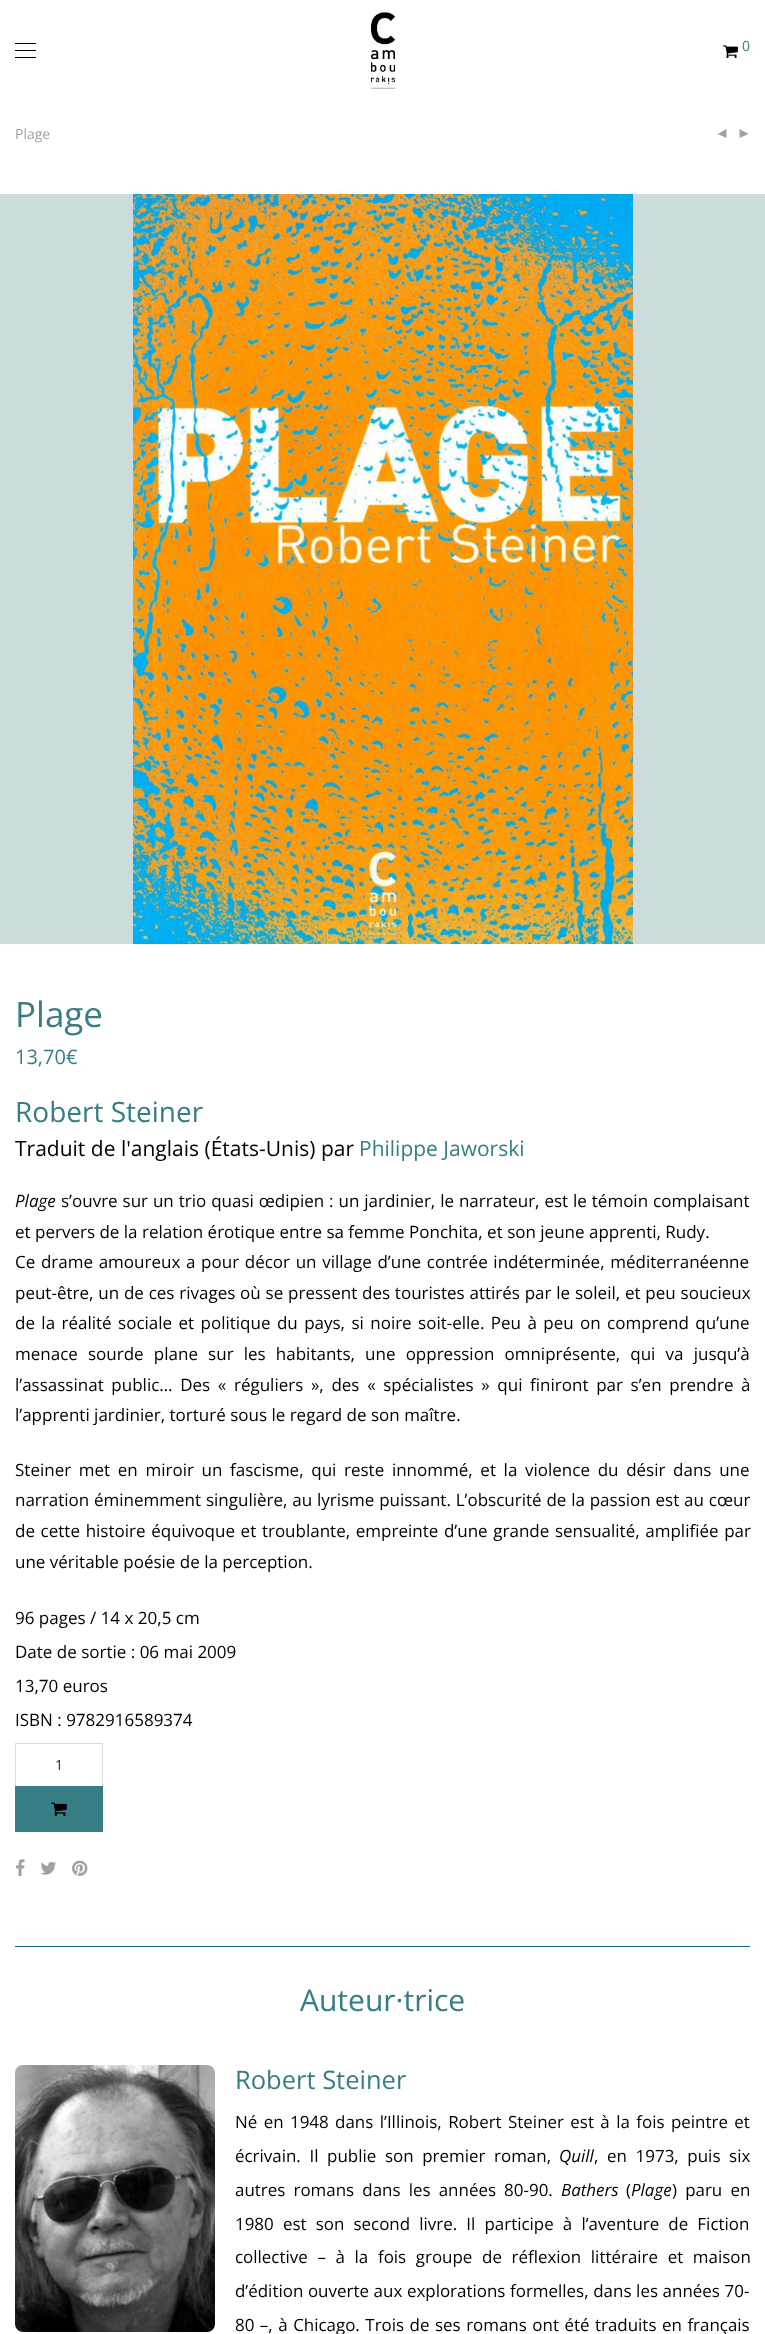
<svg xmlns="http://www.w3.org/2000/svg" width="765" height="2334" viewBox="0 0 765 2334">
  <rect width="100%" height="100%" fill="#ffffff"/>
  <rect x="15" y="43" width="21" height="1" fill="#000000"/>
  <rect x="15" y="50" width="21" height="1" fill="#000000"/>
  <rect x="15" y="57" width="21" height="1" fill="#000000"/>
  <image x="371" y="12" width="24" height="77" href="img1.png"/>
  <image x="723" y="45" width="15" height="13" href="img2.png"/>
  <text x="742" y="51" font-family="Open Sans" font-size="14" fill="#367d84">0</text>
  <text x="15" y="139" font-family="Open Sans" font-size="14" fill="#a1a1a1">Plage</text>
  <path d="M726.5 129V138L717.5 134ZM739.5 129V138L748.5 134Z" fill="#a1a1a1"/>
  <rect x="0" y="194" width="765" height="750" fill="#ccdbdb"/>
  <image x="133" y="194" width="500" height="750" href="img3.png"/>
  <text x="15" y="1027" font-family="Open Sans" font-size="35" fill="#367d84">Plage</text>
  <text x="15" y="1064" font-family="Open Sans" font-size="20" fill="#367d84">13,70€</text>
  <text x="15" y="1122" font-family="Open Sans" font-size="28" fill="#367d84">Robert Steiner</text>
  <text x="15" y="1156" font-family="Open Sans" font-size="21" fill="#000000">Traduit de l'anglais (États-Unis) par</text>
  <text x="359" y="1156" font-family="Open Sans" font-size="21" fill="#367d84">Philippe Jaworski</text>
  <text x="15" y="1207" font-family="Open Sans" font-size="17" font-style="italic" fill="#000000">Plage</text>
  <text x="61" y="1207" word-spacing="0.5" font-family="Open Sans" font-size="17" fill="#000000">s’ouvre sur un trio quasi œdipien : un jardinier, le narrateur, est le témoin complaisant</text>
  <text x="15" y="1238" font-family="Open Sans" font-size="17" fill="#000000">et pervers de la relation érotique entre sa femme Ponchita, et son jeune apprenti, Rudy.</text>
  <text x="15" y="1268" word-spacing="1.25" font-family="Open Sans" font-size="17" fill="#000000">Ce drame amoureux a pour décor un village d’une contrée indéterminée, méditerranéenne</text>
  <text x="15" y="1299" word-spacing="0.4" font-family="Open Sans" font-size="17" fill="#000000">peut-être, un de ces rivages où se pressent des touristes attirés par le soleil, et peu soucieux</text>
  <text x="15" y="1329" word-spacing="2" font-family="Open Sans" font-size="17" fill="#000000">de la réalité sociale et politique du pays, si noire soit-elle. Peu à peu on comprend qu’une</text>
  <text x="15" y="1360" word-spacing="5.75" font-family="Open Sans" font-size="17" fill="#000000">menace sourde plane sur les habitants, une oppression omniprésente, qui va jusqu’à</text>
  <text x="15" y="1391" word-spacing="3.25" font-family="Open Sans" font-size="17" fill="#000000">l’assassinat public… Des « réguliers », des « spécialistes » qui finiront par s’en prendre à</text>
  <text x="15" y="1421" font-family="Open Sans" font-size="17" fill="#000000">l’apprenti jardinier, torturé sous le regard de son maître.</text>
  <text x="15" y="1476" word-spacing="3.25" font-family="Open Sans" font-size="17" fill="#000000">Steiner met en miroir un fascisme, qui reste innommé, et la violence du désir dans une</text>
  <text x="15" y="1506" word-spacing="0.4" font-family="Open Sans" font-size="17" fill="#000000">narration éminemment singulière, au lyrisme puissant. L’obscurité de la passion est au cœur</text>
  <text x="15" y="1537" word-spacing="1.25" font-family="Open Sans" font-size="17" fill="#000000">de cette histoire équivoque et troublante, empreinte d’une grande sensualité, amplifiée par</text>
  <text x="15" y="1568" font-family="Open Sans" font-size="17" fill="#000000">une véritable poésie de la perception.</text>
  <text x="15" y="1624" font-family="Open Sans" font-size="17" fill="#000000">96 pages / 14 x 20,5 cm</text>
  <text x="15" y="1658" font-family="Open Sans" font-size="17" fill="#000000">Date de sortie : 06 mai 2009</text>
  <text x="15" y="1692" font-family="Open Sans" font-size="17" fill="#000000">13,70 euros</text>
  <text x="15" y="1726" font-family="Open Sans" font-size="17" fill="#000000">ISBN : 9782916589374</text>
  <rect x="15" y="1743" width="88" height="1" fill="#dadada"/>
  <rect x="102" y="1743" width="1" height="43" fill="#dadada"/>
  <rect x="15" y="1743" width="1" height="43" fill="#dadada"/>
  <text x="55" y="1770" font-family="Open Sans" font-size="14" fill="#282828">1</text>
  <rect x="15" y="1786" width="88" height="46" fill="#367d84"/>
  <image x="51" y="1802" width="16" height="14" href="img4.png"/>
  <image x="15" y="1859" width="10" height="17" href="img5.png"/>
  <image x="40" y="1861" width="16" height="14" href="img6.png"/>
  <image x="72" y="1860" width="16" height="16" href="img7.png"/>
  <rect x="15" y="1946" width="735" height="1" fill="#176685"/>
  <text x="300" y="2011" font-family="Open Sans" font-size="30" fill="#367d84">Auteur·trice</text>
  <image x="15" y="2065" width="200" height="267" href="img8.png"/>
  <text x="235" y="2089" font-family="Open Sans" font-size="25.5" fill="#367d84">Robert Steiner</text>
  <text x="235" y="2128" word-spacing="2" font-family="Open Sans" font-size="16.95" fill="#000000">Né en 1948 dans l’Illinois, Robert Steiner est à la fois peintre et</text>
  <text x="235" y="2162" word-spacing="4.25" font-family="Open Sans" font-size="16.95" fill="#000000">écrivain. Il publie son premier roman,</text>
  <text x="559" y="2162" font-family="Open Sans" font-size="16.95" font-style="italic" fill="#000000">Quill</text>
  <text x="594" y="2162" word-spacing="4.25" font-family="Open Sans" font-size="16.95" fill="#000000">, en 1973, puis six</text>
  <text x="235" y="2196" word-spacing="3.75" font-family="Open Sans" font-size="16.95" fill="#000000">autres romans dans les années 80-90.</text>
  <text x="561" y="2196" font-family="Open Sans" font-size="16.95" font-style="italic" fill="#000000">Bathers</text>
  <text x="626" y="2196" font-family="Open Sans" font-size="16.95" fill="#000000">(</text>
  <text x="631" y="2196" font-family="Open Sans" font-size="16.95" font-style="italic" fill="#000000">Plage</text>
  <text x="672" y="2196" word-spacing="3.75" font-family="Open Sans" font-size="16.95" fill="#000000">) paru en</text>
  <text x="235" y="2230" word-spacing="4.75" font-family="Open Sans" font-size="16.95" fill="#000000">1980 est son second livre. Il participe à l’aventure de Fiction</text>
  <text x="235" y="2263" word-spacing="5.25" font-family="Open Sans" font-size="16.95" fill="#000000">collective – à la fois groupe de réflexion littéraire et maison</text>
  <text x="235" y="2297" word-spacing="0.25" font-family="Open Sans" font-size="16.95" fill="#000000">d’édition ouverte aux explorations formelles, dans les années 70-</text>
  <text x="235" y="2331" word-spacing="1.1" font-family="Open Sans" font-size="16.95" fill="#000000">80 –, à Chicago. Trois de ses romans ont été traduits en français</text>
</svg>
